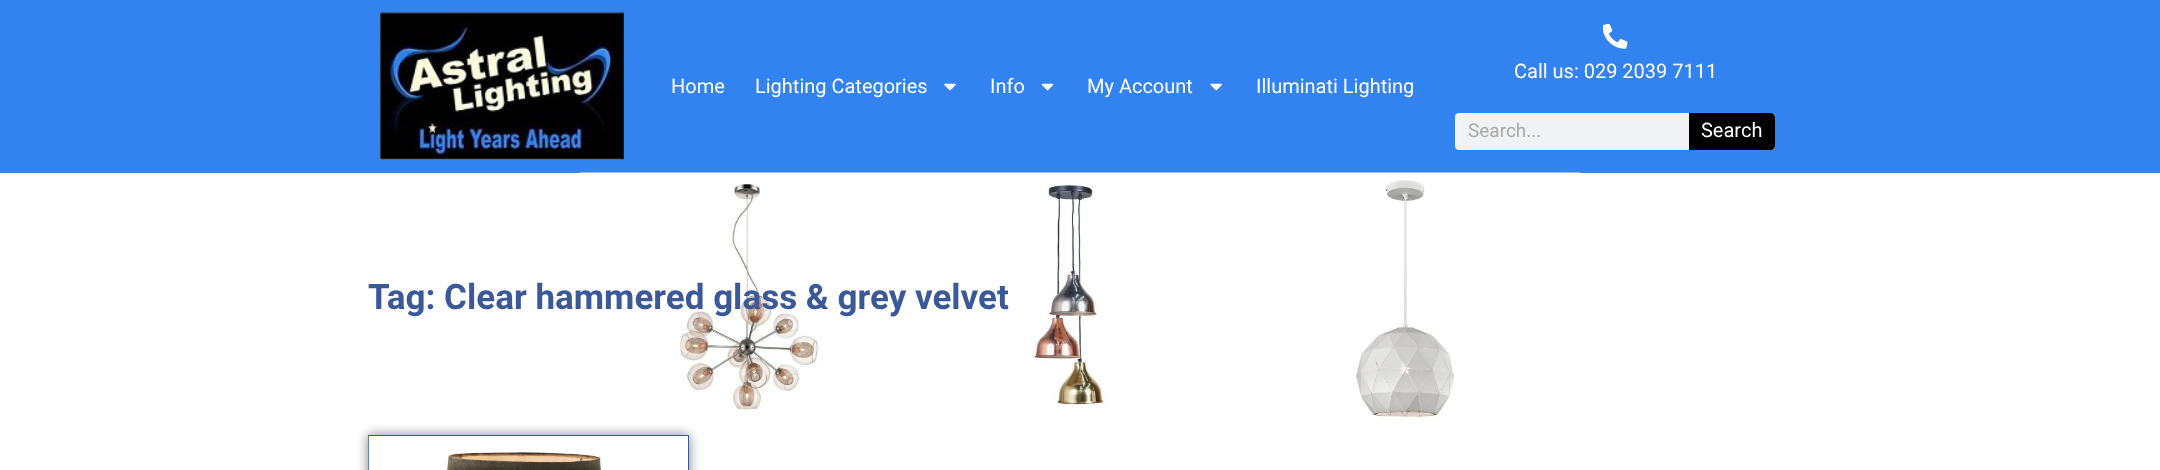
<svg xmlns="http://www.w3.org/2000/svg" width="2160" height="470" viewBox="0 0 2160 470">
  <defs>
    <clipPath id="clip1"><path d="M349 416H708V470H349ZM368 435H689V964H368Z" clip-rule="evenodd"/></clipPath>
    <filter id="blur1" x="-50%" y="-200%" width="200%" height="500%"><feGaussianBlur stdDeviation="6"/></filter>
  </defs>
  <rect width="100%" height="100%" fill="#ffffff"/>
  <rect x="0" y="0" width="2160" height="173" fill="#3283ef"/>
  <image x="380" y="12" width="244" height="148" href="img1.png"/>
  <text x="671" y="93" font-family="Roboto" font-size="20" fill="#ffffff">Home</text>
  <text x="755" y="93" font-family="Roboto" font-size="20" fill="#ffffff">Lighting Categories</text>
  <image x="944" y="83" width="12" height="8" href="img2.png"/>
  <text x="990" y="93" font-family="Roboto" font-size="20" fill="#ffffff">Info</text>
  <image x="1041" y="83" width="13" height="8" href="img3.png"/>
  <text x="1087" y="93" font-family="Roboto" font-size="20" fill="#ffffff">My Account</text>
  <image x="1210" y="83" width="12" height="8" href="img4.png"/>
  <text x="1256" y="93" font-family="Roboto" font-size="20" fill="#ffffff">Illuminati Lighting</text>
  <image x="1603" y="24" width="25" height="25" href="img5.png"/>
  <text x="1514" y="78" font-family="Roboto" font-size="20" fill="#ffffff">Call us: 029 2039 7111</text>
  <rect x="1455" y="113" width="320" height="37" rx="4" fill="#f1f2f3"/>
  <text x="1468" y="137" font-family="Roboto" font-size="19" fill="#aaaaaa">Search...</text>
  <path d="M1689 113H1771C1773 113 1775 115 1775 117V146C1775 148 1773 150 1771 150H1689Z" fill="#000000"/>
  <text x="1701" y="137" font-family="Roboto" font-size="20" fill="#ffffff">Search</text>
  <image x="580" y="172" width="1000" height="250" href="img6.png"/>
  <text x="368" y="309" font-family="Roboto" font-size="35" font-weight="bold" fill="#3b5998">Tag: Clear hammered glass &amp; grey velvet</text>
  <g clip-path="url(#clip1)">
    <rect x="368" y="435" width="321" height="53" fill="#000000" fill-opacity="0.5" filter="url(#blur1)"/>
  </g>
  <rect x="368.5" y="435.5" width="320" height="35" fill="none" stroke="#3b5998"/>
  <image x="368" y="436" width="235" height="34" href="img7.png"/>
</svg>
